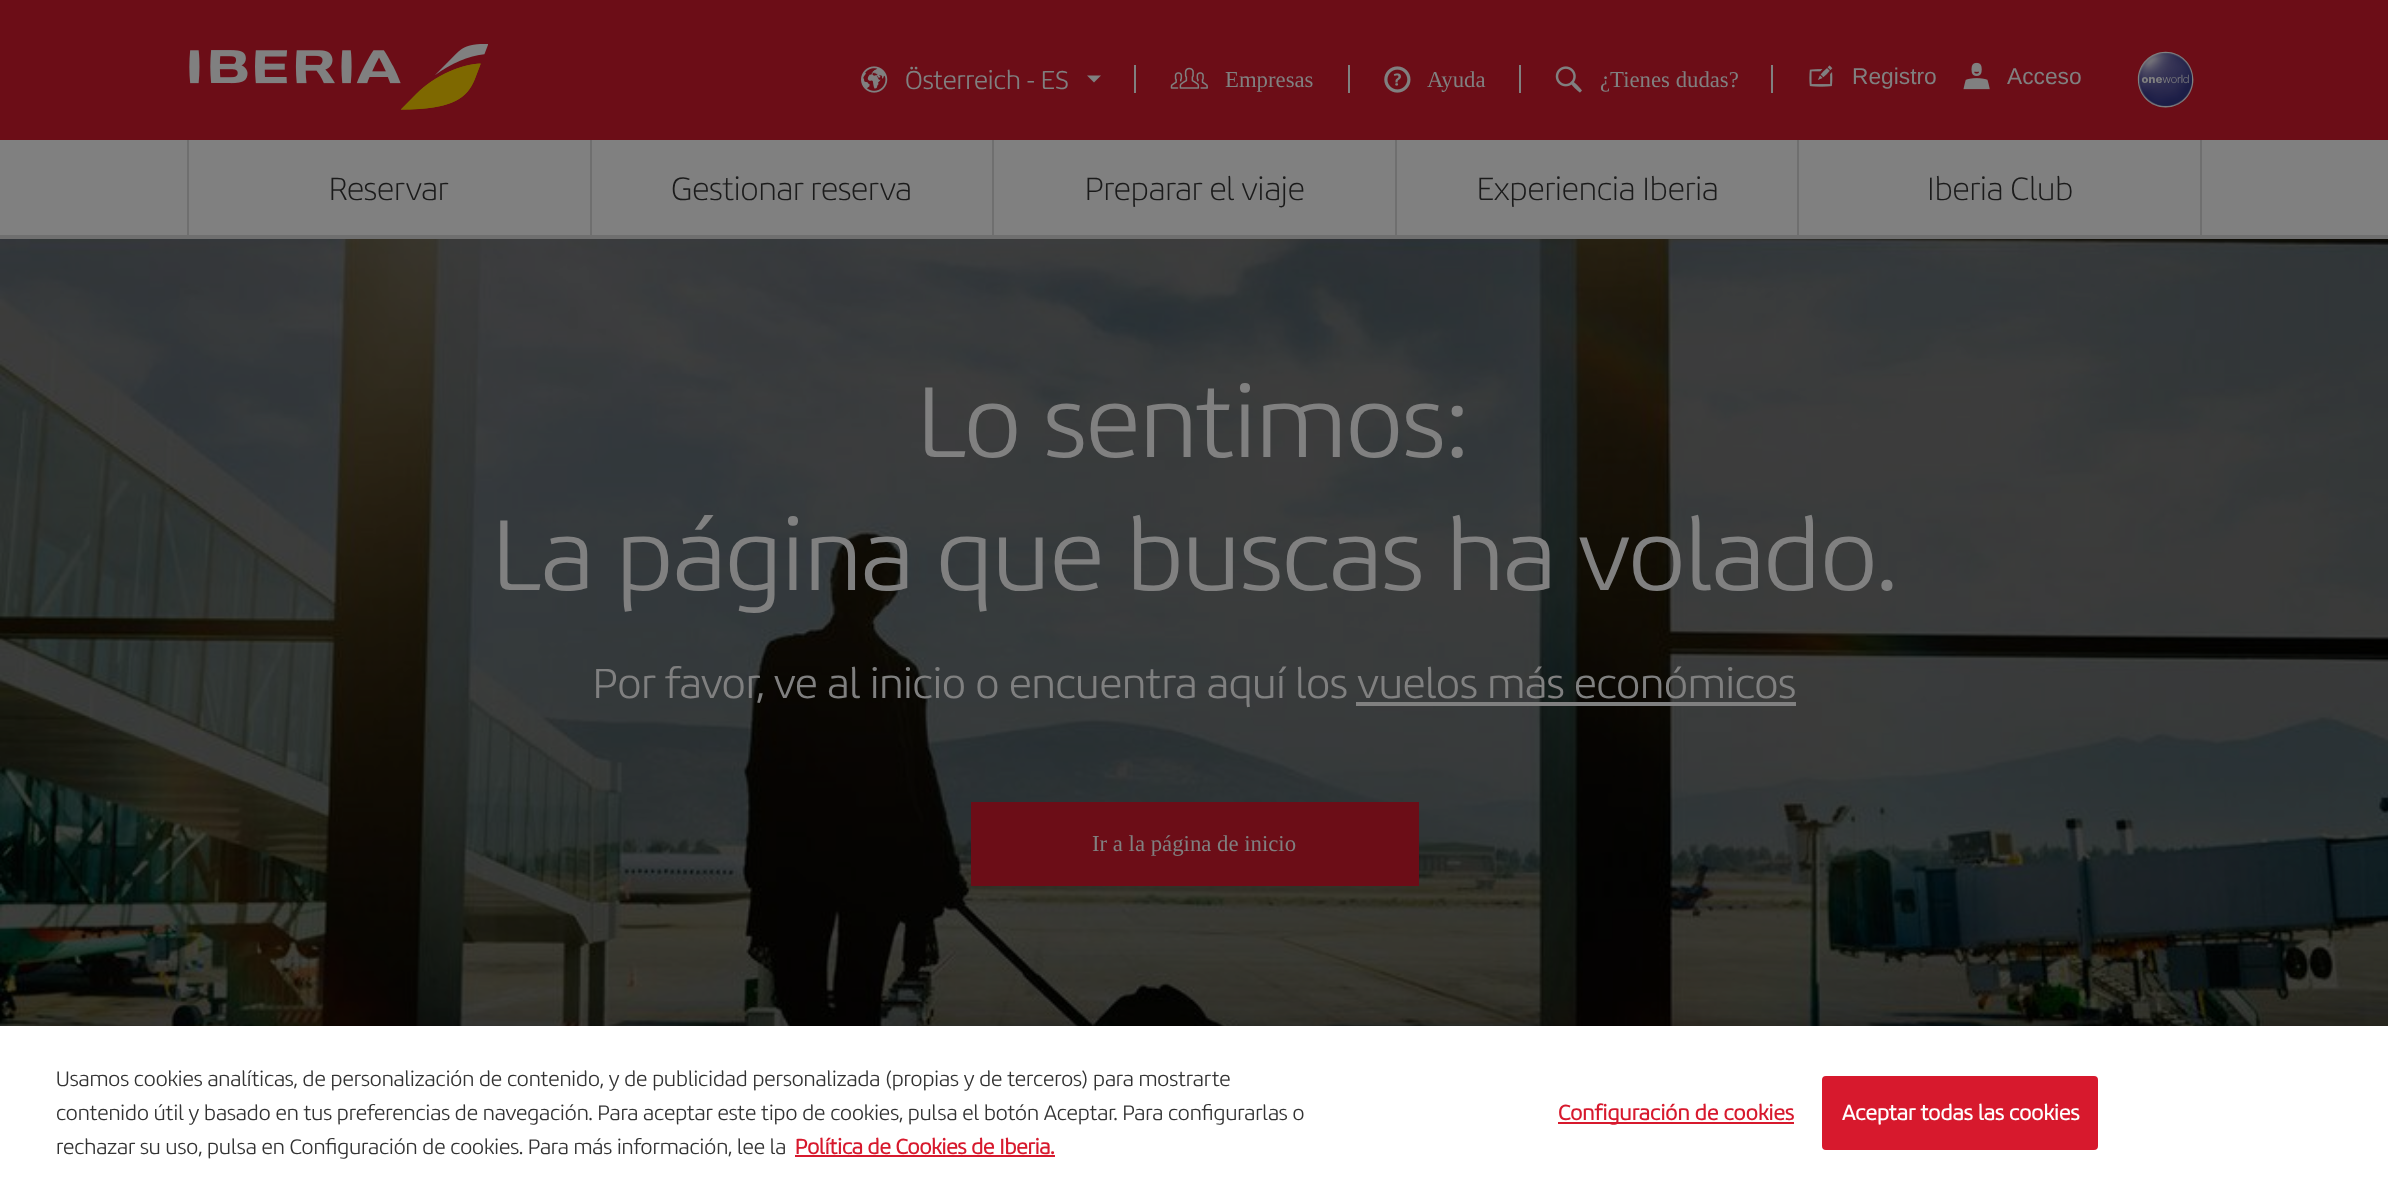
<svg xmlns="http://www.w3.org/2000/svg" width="2388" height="1203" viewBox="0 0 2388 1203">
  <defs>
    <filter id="blur1" x="-50%" y="-200%" width="200%" height="500%"><feGaussianBlur stdDeviation="16"/></filter>
  </defs>
  <rect width="100%" height="100%" fill="#6c0d17"/>
  <image x="189" y="44" width="299" height="66" href="img1.png"/>
  <image x="861" y="66" width="27" height="27" href="img2.png"/>
  <text x="905" y="89" font-family="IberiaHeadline" font-size="28" fill="#808080">Österreich - ES</text>
  <path d="M1087 75.5H1101L1094 82.5Z" fill="#808080"/>
  <rect x="1134" y="65" width="2" height="28" fill="#808080"/>
  <image x="1170" y="67" width="38" height="22" href="img3.png"/>
  <text x="1225" y="87" font-family="Liberation Serif" font-size="22.75" fill="#808080">Empresas</text>
  <rect x="1348" y="65" width="2" height="28" fill="#808080"/>
  <image x="1384" y="66" width="27" height="27" href="img4.png"/>
  <text x="1427" y="87" font-family="Liberation Serif" font-size="22.75" fill="#808080">Ayuda</text>
  <rect x="1519" y="65" width="2" height="28" fill="#808080"/>
  <image x="1555" y="66" width="27" height="27" href="img5.png"/>
  <text x="1600" y="87" font-family="Liberation Serif" font-size="22.75" fill="#808080">¿Tienes dudas?</text>
  <rect x="1771" y="65" width="2" height="28" fill="#808080"/>
  <image x="1809" y="65" width="24" height="22" href="img6.png"/>
  <text x="1852" y="84" font-family="Liberation Sans" font-size="22.75" fill="#808080">Registro</text>
  <image x="1963" y="62" width="27" height="28" href="img7.png"/>
  <text x="2007" y="84" font-family="Liberation Sans" font-size="22.75" fill="#808080">Acceso</text>
  <image x="2137" y="51" width="57" height="57" href="img8.png"/>
  <rect x="0" y="140" width="2388" height="95" fill="#808080"/>
  <rect x="0" y="235" width="2388" height="4" fill="#6f6f6f"/>
  <rect x="187" y="140" width="2" height="95" fill="#6f6f6f"/>
  <text x="329" y="200" font-family="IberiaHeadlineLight" font-size="35" font-weight="300" fill="#1a1a1a">Reservar</text>
  <rect x="590" y="140" width="2" height="95" fill="#6f6f6f"/>
  <text x="671" y="200" font-family="IberiaHeadlineLight" font-size="35" font-weight="300" fill="#1a1a1a">Gestionar reserva</text>
  <rect x="992" y="140" width="2" height="95" fill="#6f6f6f"/>
  <text x="1085" y="200" font-family="IberiaHeadlineLight" font-size="35" font-weight="300" fill="#1a1a1a">Preparar el viaje</text>
  <rect x="1395" y="140" width="2" height="95" fill="#6f6f6f"/>
  <text x="1477" y="200" font-family="IberiaHeadlineLight" font-size="35" font-weight="300" fill="#1a1a1a">Experiencia Iberia</text>
  <rect x="2200" y="140" width="2" height="95" fill="#6f6f6f"/>
  <rect x="1797" y="140" width="2" height="95" fill="#6f6f6f"/>
  <text x="1927" y="200" font-family="IberiaHeadlineLight" font-size="35" font-weight="300" fill="#1a1a1a">Iberia Club</text>
  <image x="0" y="239" width="2388" height="787" href="img9.png"/>
  <text x="918" y="457" font-family="IberiaHeadline" font-size="108.5" fill="#808080">Lo sentimos:</text>
  <text x="493" y="590" font-family="IberiaHeadline" font-size="108.5" fill="#808080">La página que buscas ha volado.</text>
  <text x="593" y="698" font-family="IberiaHeadline" font-size="45.5" fill="#808080">Por favor, ve al inicio o encuentra aquí los vuelos más económicos</text>
  <rect x="1356" y="702" width="440" height="4" fill="#808080"/>
  <rect x="971" y="802" width="448" height="84" fill="#6c0d17"/>
  <text x="1092" y="851" font-family="Liberation Serif" font-size="22.75" fill="#808080">Ir a la página de inicio</text>
  <rect x="0" y="1026" width="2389" height="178" fill="#000000" fill-opacity="0.2" filter="url(#blur1)"/>
  <rect x="0" y="1026" width="2388" height="177" fill="#ffffff"/>
  <text x="56" y="1086" font-family="IberiaHeadline" font-size="22.75" fill="#333333">Usamos cookies analíticas, de personalización de contenido, y de publicidad personalizada (propias y de terceros) para mostrarte</text>
  <text x="56" y="1120" font-family="IberiaHeadline" font-size="22.75" fill="#333333">contenido útil y basado en tus preferencias de navegación. Para aceptar este tipo de cookies, pulsa el botón Aceptar. Para configurarlas o</text>
  <text x="56" y="1154" font-family="IberiaHeadline" font-size="22.75" fill="#333333">rechazar su uso, pulsa en Configuración de cookies. Para más información, lee la</text>
  <text x="795" y="1154" font-family="IberiaHeadline" font-size="22.75" font-weight="bold" fill="#d7192d">Política de Cookies de Iberia.</text>
  <rect x="795" y="1155" width="260" height="2" fill="#d7192d"/>
  <rect x="1558" y="1122" width="236" height="2" fill="#d7192d"/>
  <text x="1558" y="1120" font-family="IberiaHeadline" font-size="22.75" font-weight="bold" letter-spacing="0.25" fill="#d7192d">Configuración de cookies</text>
  <rect x="1823" y="1077" width="274" height="72" rx="3" fill="#d7192d" stroke="#d7192d" stroke-width="2"/>
  <text x="1842" y="1120" font-family="IberiaHeadline" font-size="22.75" font-weight="bold" letter-spacing="0.25" fill="#ffffff">Aceptar todas las cookies</text>
</svg>
